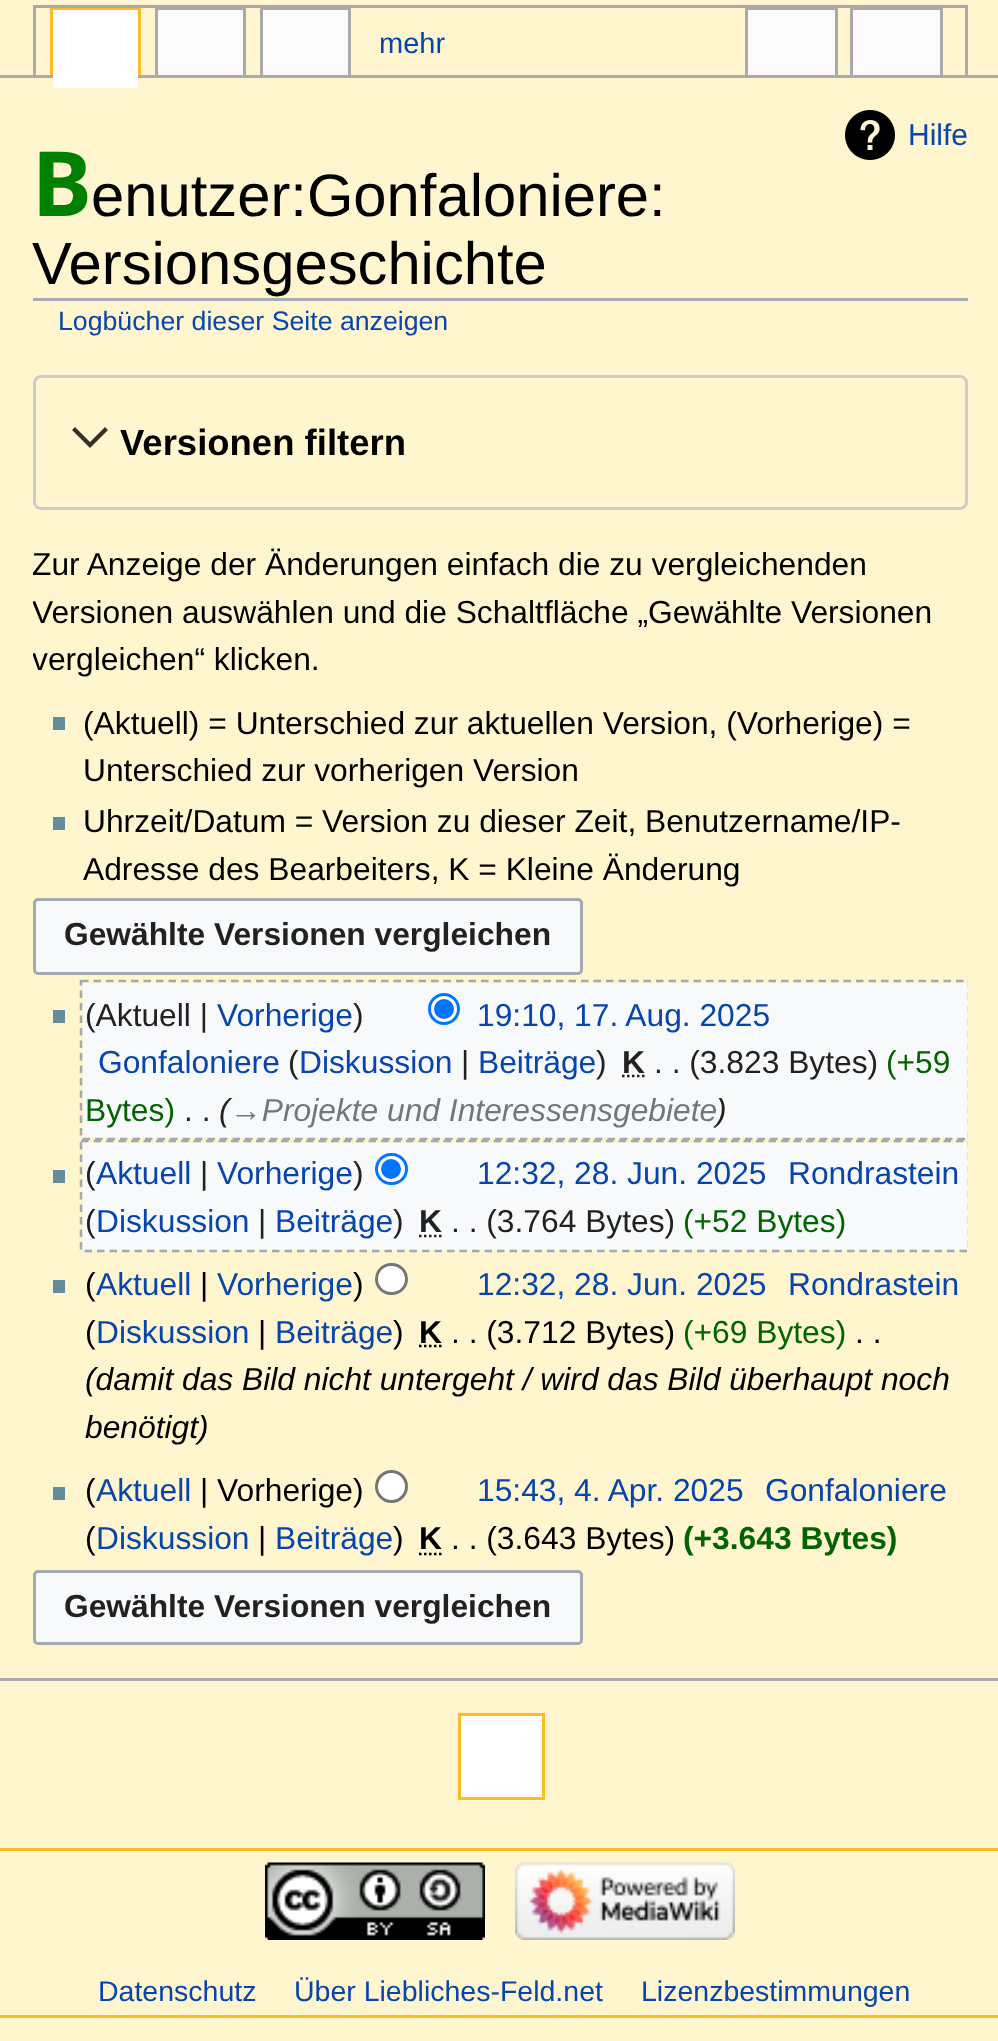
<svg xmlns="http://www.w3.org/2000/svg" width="998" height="2041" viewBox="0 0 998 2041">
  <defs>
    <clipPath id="clip1"><rect x="33" y="305" width="935" height="1340"/></clipPath>
  </defs>
  <rect width="100%" height="100%" fill="#fff5ce"/>
  <rect x="34.5" y="6.5" width="932" height="85" fill="none" stroke="#aaaaaa" stroke-width="3"/>
  <rect x="50" y="8" width="90" height="2" fill="#fabd23"/>
  <rect x="138" y="8" width="3" height="72" fill="#fabd23"/>
  <rect x="50" y="8" width="3" height="72" fill="#fabd23"/>
  <rect x="155" y="8" width="90" height="2" fill="#aaaaaa"/>
  <rect x="243" y="8" width="3" height="72" fill="#aaaaaa"/>
  <rect x="155" y="8" width="3" height="72" fill="#aaaaaa"/>
  <rect x="260" y="8" width="90" height="2" fill="#aaaaaa"/>
  <rect x="348" y="8" width="3" height="72" fill="#aaaaaa"/>
  <rect x="260" y="8" width="3" height="72" fill="#aaaaaa"/>
  <rect x="745" y="8" width="93" height="2" fill="#aaaaaa"/>
  <rect x="835" y="8" width="3" height="72" fill="#aaaaaa"/>
  <rect x="745" y="8" width="3" height="72" fill="#aaaaaa"/>
  <rect x="850" y="8" width="93" height="2" fill="#aaaaaa"/>
  <rect x="940" y="8" width="3" height="72" fill="#aaaaaa"/>
  <rect x="850" y="8" width="3" height="72" fill="#aaaaaa"/>
  <rect x="33" y="78" width="935" height="15" fill="#fff5ce"/>
  <rect x="0" y="75" width="998" height="3" fill="#aaaaaa"/>
  <rect x="53" y="10" width="85" height="78" fill="#ffffff"/>
  <rect x="158" y="10" width="85" height="65" fill="#fbfbfb"/>
  <rect x="263" y="10" width="85" height="65" fill="#fbfbfb"/>
  <text x="379" y="53" font-family="Liberation Sans" font-size="29" fill="#0645ad">mehr</text>
  <rect x="748" y="10" width="87" height="65" fill="#fbfbfb"/>
  <rect x="853" y="10" width="87" height="65" fill="#fbfbfb"/>
  <rect x="459.5" y="1714.5" width="84" height="84" fill="#ffffff" stroke="#fabd23" stroke-width="3"/>
  <rect x="0" y="1678" width="998" height="3" fill="#aaaaaa"/>
  <image x="845" y="110" width="50" height="50" href="img1.png"/>
  <text x="908" y="145" font-family="Liberation Sans" font-size="30" fill="#0645ad">Hilfe</text>
  <rect x="33" y="298" width="935" height="3" fill="#a2a9b1"/>
  <text x="32" y="216" font-family="Noto Sans" font-size="90" font-weight="bold" fill="#008000">B</text>
  <text x="91" y="216" font-family="Liberation Sans" font-size="59.75" fill="#000000">enutzer:Gonfaloniere:</text>
  <text x="32" y="284" font-family="Liberation Sans" font-size="59.75" fill="#000000">Versionsgeschichte</text>
  <text x="58" y="330" font-family="Liberation Sans" font-size="26.7" fill="#0645ad">Logbücher dieser Seite anzeigen</text>
  <rect x="34.5" y="376.5" width="932" height="132" rx="6.5" fill="none" stroke="#cccccc" stroke-width="3"/>
  <path d="M105 427L90 442L75 427L72 430L90 448L108 430Z" fill="#333129"/>
  <text x="120" y="455" font-family="Liberation Sans" font-size="36.5" font-weight="bold" fill="#000000">Versionen filtern</text>
  <g clip-path="url(#clip1)">
    <text x="32" y="575" font-family="Liberation Sans" font-size="31.75" fill="#000000">Zur Anzeige der Änderungen einfach die zu vergleichenden</text>
    <text x="32" y="623" font-family="Liberation Sans" font-size="31.75" fill="#000000">Versionen auswählen und die Schaltfläche „Gewählte Versionen</text>
    <text x="32" y="670" font-family="Liberation Sans" font-size="31.75" fill="#000000">vergleichen“ klicken.</text>
  </g>
  <rect x="53" y="717" width="12" height="13" fill="#638c9c"/>
  <text x="83" y="734" font-family="Liberation Sans" font-size="31.75" fill="#000000">(Aktuell) = Unterschied zur aktuellen Version, (Vorherige) =</text>
  <text x="83" y="781" font-family="Liberation Sans" font-size="31.75" fill="#000000">Unterschied zur vorherigen Version</text>
  <rect x="53" y="817" width="12" height="13" fill="#638c9c"/>
  <text x="83" y="832" font-family="Liberation Sans" font-size="31.75" fill="#000000">Uhrzeit/Datum = Version zu dieser Zeit, Benutzername/IP-</text>
  <text x="83" y="880" font-family="Liberation Sans" font-size="31.75" fill="#000000">Adresse des Bearbeiters, K = Kleine Änderung</text>
  <rect x="34.5" y="899.5" width="547" height="74" rx="3.5" fill="#f8f9fa" stroke="#a2a9b1" stroke-width="3"/>
  <text x="64" y="945" font-family="Liberation Sans" font-size="31.75" font-weight="bold" fill="#202122">Gewählte Versionen vergleichen</text>
  <rect x="83" y="983" width="885" height="155" fill="#f8f9fa"/>
  <rect x="53" y="1010" width="12" height="13" fill="#638c9c"/>
  <text x="85" y="1026" font-family="Liberation Sans" font-size="31.75" fill="#202122">(Aktuell |</text>
  <text x="217" y="1026" font-family="Liberation Sans" font-size="31.75" fill="#0645ad">Vorherige</text>
  <text x="353" y="1026" font-family="Liberation Sans" font-size="31.75" fill="#202122">)</text>
  <circle cx="444" cy="1009" r="14.5" fill="#ffffff" stroke="#0075ff" stroke-width="3"/>
  <circle cx="444" cy="1009" r="10" fill="#0075ff"/>
  <text x="477" y="1026" font-family="Liberation Sans" font-size="31.75" fill="#0645ad">19:10, 17. Aug. 2025</text>
  <text x="98" y="1073" font-family="Liberation Sans" font-size="31.75" fill="#0645ad">Gonfaloniere</text>
  <text x="288" y="1073" font-family="Liberation Sans" font-size="31.75" fill="#202122">(</text>
  <text x="299" y="1073" font-family="Liberation Sans" font-size="31.75" fill="#0645ad">Diskussion</text>
  <text x="461" y="1073" font-family="Liberation Sans" font-size="31.75" fill="#202122">|</text>
  <text x="478" y="1073" font-family="Liberation Sans" font-size="31.75" fill="#0645ad">Beiträge</text>
  <text x="596" y="1073" font-family="Liberation Sans" font-size="31.75" fill="#202122">)</text>
  <text x="622" y="1073" font-family="Liberation Sans" font-size="31.75" font-weight="bold" fill="#202122">K</text>
  <path d="M622 1076H645" fill="none" stroke="#202122" stroke-width="2.5" stroke-dasharray="2.5 2.5"/>
  <text x="654" y="1073" font-family="Liberation Sans" font-size="31.75" fill="#202122">. . (3.823 Bytes)</text>
  <text x="886" y="1073" font-family="Liberation Sans" font-size="31.75" fill="#006400">(+59</text>
  <text x="85" y="1121" font-family="Liberation Sans" font-size="31.75" fill="#006400">Bytes)</text>
  <text x="184" y="1121" font-family="Liberation Sans" font-size="31.75" fill="#202122">. .</text>
  <text x="219" y="1121" font-family="Liberation Sans" font-size="31.75" font-style="italic" fill="#202122">(</text>
  <text x="230" y="1121" font-family="Liberation Sans" font-size="31.75" font-style="italic" fill="#72777d">→Projekte und Interessensgebiete</text>
  <text x="716" y="1121" font-family="Liberation Sans" font-size="31.75" font-style="italic" fill="#202122">)</text>
  <g clip-path="url(#clip1)">
    <path d="M81 981H969V1139H81Z" fill="none" stroke="#a2a9b1" stroke-width="2.5" stroke-dasharray="7.5 5"/>
  </g>
  <rect x="83" y="1143" width="885" height="107" fill="#f8f9fa"/>
  <rect x="53" y="1170" width="12" height="13" fill="#638c9c"/>
  <text x="85" y="1184" font-family="Liberation Sans" font-size="31.75" fill="#202122">(</text>
  <text x="96" y="1184" font-family="Liberation Sans" font-size="31.75" fill="#0645ad">Aktuell</text>
  <text x="200" y="1184" font-family="Liberation Sans" font-size="31.75" fill="#202122">|</text>
  <text x="217" y="1184" font-family="Liberation Sans" font-size="31.75" fill="#0645ad">Vorherige</text>
  <text x="353" y="1184" font-family="Liberation Sans" font-size="31.75" fill="#202122">)</text>
  <rect x="376.5" y="1154.5" width="30" height="29" rx="14.5" fill="#ffffff" stroke="#0075ff" stroke-width="3"/>
  <circle cx="391" cy="1169" r="10" fill="#0075ff"/>
  <text x="788" y="1184" font-family="Liberation Sans" font-size="31.75" fill="#0645ad">Rondrastein</text>
  <text x="85" y="1232" font-family="Liberation Sans" font-size="31.75" fill="#202122">(</text>
  <text x="96" y="1232" font-family="Liberation Sans" font-size="31.75" fill="#0645ad">Diskussion</text>
  <text x="258" y="1232" font-family="Liberation Sans" font-size="31.75" fill="#202122">|</text>
  <text x="275" y="1232" font-family="Liberation Sans" font-size="31.75" fill="#0645ad">Beiträge</text>
  <text x="393" y="1232" font-family="Liberation Sans" font-size="31.75" fill="#202122">)</text>
  <text x="477" y="1184" font-family="Liberation Sans" font-size="31.75" fill="#0645ad">12:32, 28. Jun. 2025</text>
  <text x="419" y="1232" font-family="Liberation Sans" font-size="31.75" font-weight="bold" fill="#202122">K</text>
  <path d="M419 1236H441.5" fill="none" stroke="#202122" stroke-width="2.5" stroke-dasharray="2.5 2.5"/>
  <text x="451" y="1232" font-family="Liberation Sans" font-size="31.75" fill="#202122">. . (3.764 Bytes)</text>
  <text x="683" y="1232" font-family="Liberation Sans" font-size="31.75" fill="#006400">(+52 Bytes)</text>
  <g clip-path="url(#clip1)">
    <path d="M81 1141H969V1251H81Z" fill="none" stroke="#a2a9b1" stroke-width="2.5" stroke-dasharray="7.5 5"/>
  </g>
  <rect x="53" y="1280" width="12" height="13" fill="#638c9c"/>
  <text x="85" y="1295" font-family="Liberation Sans" font-size="31.75" fill="#000000">(</text>
  <text x="96" y="1295" font-family="Liberation Sans" font-size="31.75" fill="#0645ad">Aktuell</text>
  <text x="200" y="1295" font-family="Liberation Sans" font-size="31.75" fill="#000000">|</text>
  <text x="217" y="1295" font-family="Liberation Sans" font-size="31.75" fill="#0645ad">Vorherige</text>
  <text x="353" y="1295" font-family="Liberation Sans" font-size="31.75" fill="#000000">)</text>
  <rect x="376.5" y="1264.5" width="30" height="29" rx="14.5" fill="#ffffff" stroke="#767676" stroke-width="3"/>
  <text x="788" y="1295" font-family="Liberation Sans" font-size="31.75" fill="#0645ad">Rondrastein</text>
  <text x="85" y="1343" font-family="Liberation Sans" font-size="31.75" fill="#000000">(</text>
  <text x="96" y="1343" font-family="Liberation Sans" font-size="31.75" fill="#0645ad">Diskussion</text>
  <text x="258" y="1343" font-family="Liberation Sans" font-size="31.75" fill="#000000">|</text>
  <text x="275" y="1343" font-family="Liberation Sans" font-size="31.75" fill="#0645ad">Beiträge</text>
  <text x="393" y="1343" font-family="Liberation Sans" font-size="31.75" fill="#000000">)</text>
  <text x="477" y="1295" font-family="Liberation Sans" font-size="31.75" fill="#0645ad">12:32, 28. Jun. 2025</text>
  <text x="419" y="1343" font-family="Liberation Sans" font-size="31.75" font-weight="bold" fill="#000000">K</text>
  <path d="M419 1346H441.5" fill="none" stroke="#000000" stroke-width="2.5" stroke-dasharray="2.5 2.5"/>
  <text x="451" y="1343" font-family="Liberation Sans" font-size="31.75" fill="#000000">. . (3.712 Bytes)</text>
  <text x="683" y="1343" font-family="Liberation Sans" font-size="31.75" fill="#006400">(+69 Bytes)</text>
  <text x="855" y="1343" font-family="Liberation Sans" font-size="31.75" fill="#000000">. .</text>
  <text x="85" y="1390" font-family="Liberation Sans" font-size="31.75" font-style="italic" fill="#000000">(damit das Bild nicht untergeht / wird das Bild überhaupt noch</text>
  <text x="85" y="1438" font-family="Liberation Sans" font-size="31.75" font-style="italic" fill="#000000">benötigt)</text>
  <rect x="53" y="1487" width="12" height="13" fill="#638c9c"/>
  <text x="85" y="1501" font-family="Liberation Sans" font-size="31.75" fill="#000000">(</text>
  <text x="96" y="1501" font-family="Liberation Sans" font-size="31.75" fill="#0645ad">Aktuell</text>
  <text x="200" y="1501" font-family="Liberation Sans" font-size="31.75" fill="#000000">| Vorherige)</text>
  <circle cx="391.5" cy="1486.5" r="15" fill="#ffffff" stroke="#767676" stroke-width="3"/>
  <text x="765" y="1501" font-family="Liberation Sans" font-size="31.75" fill="#0645ad">Gonfaloniere</text>
  <text x="85" y="1549" font-family="Liberation Sans" font-size="31.75" fill="#000000">(</text>
  <text x="96" y="1549" font-family="Liberation Sans" font-size="31.75" fill="#0645ad">Diskussion</text>
  <text x="258" y="1549" font-family="Liberation Sans" font-size="31.75" fill="#000000">|</text>
  <text x="275" y="1549" font-family="Liberation Sans" font-size="31.75" fill="#0645ad">Beiträge</text>
  <text x="393" y="1549" font-family="Liberation Sans" font-size="31.75" fill="#000000">)</text>
  <text x="477" y="1501" font-family="Liberation Sans" font-size="31.75" fill="#0645ad">15:43, 4. Apr. 2025</text>
  <text x="419" y="1549" font-family="Liberation Sans" font-size="31.75" font-weight="bold" fill="#000000">K</text>
  <path d="M419 1554H441.5" fill="none" stroke="#000000" stroke-width="2.5" stroke-dasharray="2.5 2.5"/>
  <text x="451" y="1549" font-family="Liberation Sans" font-size="31.75" fill="#000000">. . (3.643 Bytes)</text>
  <text x="683" y="1549" font-family="Liberation Sans" font-size="31.75" font-weight="bold" fill="#006400">(+3.643 Bytes)</text>
  <rect x="34.5" y="1571.5" width="547" height="72" rx="3.5" fill="#f8f9fa" stroke="#a2a9b1" stroke-width="3"/>
  <text x="64" y="1617" font-family="Liberation Sans" font-size="31.75" font-weight="bold" fill="#202122">Gewählte Versionen vergleichen</text>
  <rect x="0" y="1848" width="998" height="3" fill="#fabd23"/>
  <rect x="0" y="2015" width="998" height="3" fill="#fabd23"/>
  <image x="265" y="1862" width="220" height="78" href="img2.png"/>
  <image x="515" y="1862" width="220" height="78" href="img3.png"/>
  <text x="98" y="2001" font-family="Liberation Sans" font-size="28.5" fill="#0645ad">Datenschutz</text>
  <text x="294" y="2001" font-family="Liberation Sans" font-size="28.5" fill="#0645ad">Über Liebliches-Feld.net</text>
  <text x="641" y="2001" font-family="Liberation Sans" font-size="28.5" fill="#0645ad">Lizenzbestimmungen</text>
</svg>
